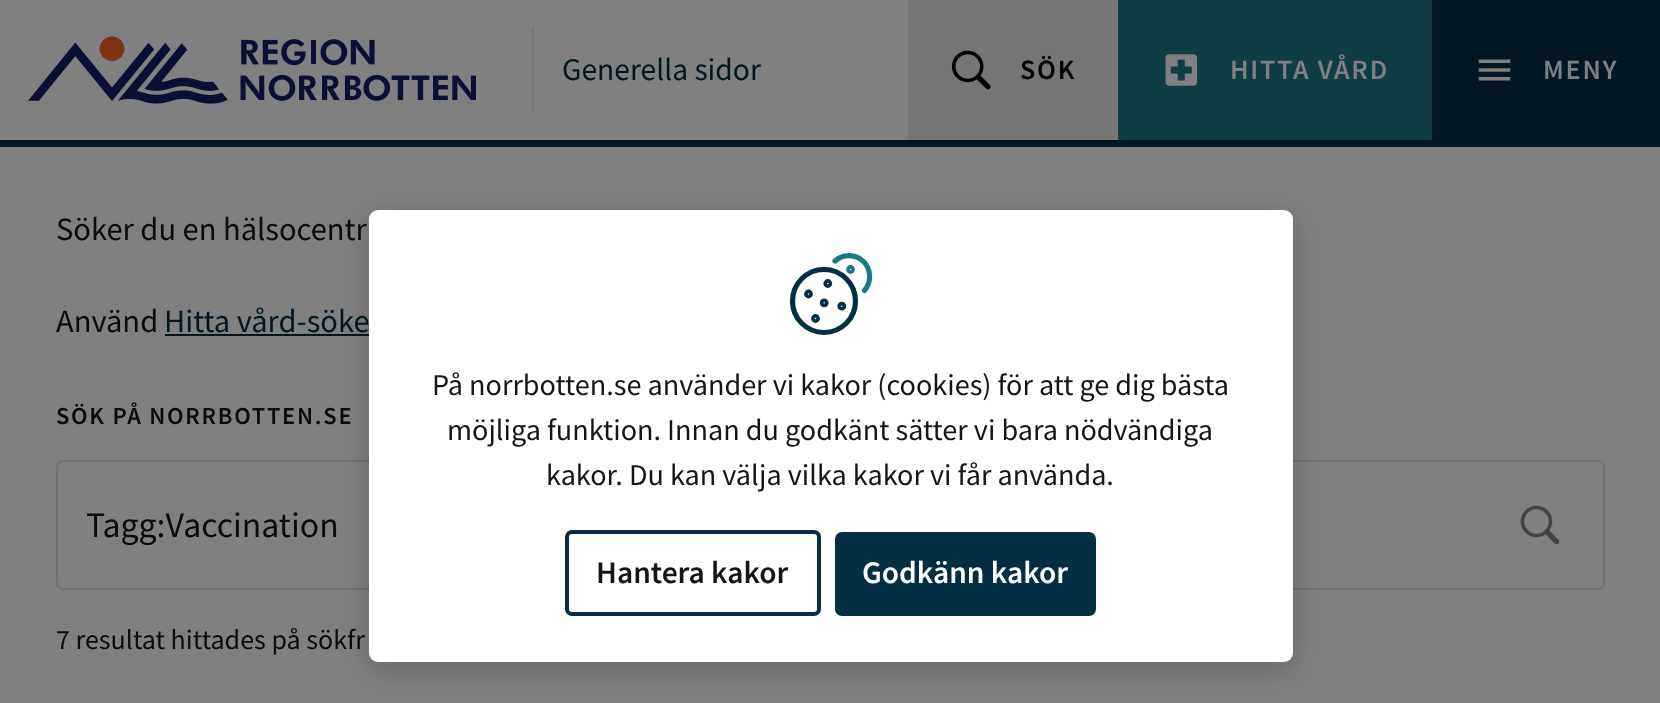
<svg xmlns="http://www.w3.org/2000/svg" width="1660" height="703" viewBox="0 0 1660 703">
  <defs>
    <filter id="blur1" x="-50%" y="-200%" width="200%" height="500%"><feGaussianBlur stdDeviation="14"/></filter>
  </defs>
  <rect width="100%" height="100%" fill="#808080"/>
  <image x="28" y="36" width="448" height="68" href="img1.png"/>
  <rect x="532" y="28" width="2" height="84" fill="#767677"/>
  <text x="562" y="80" font-family="Source Sans Pro" font-size="31.5" fill="#021722">Generella sidor</text>
  <rect x="908" y="0" width="210" height="140" fill="#767677"/>
  <image x="951" y="50" width="40" height="40" href="img2.png"/>
  <text x="1020" y="79" font-family="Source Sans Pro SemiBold" font-size="28" font-weight="600" letter-spacing="1.75" fill="#000000">SÖK</text>
  <rect x="1118" y="0" width="314" height="140" fill="#0e3d43"/>
  <image x="1165" y="54" width="32" height="32" href="img3.png"/>
  <text x="1230" y="79" font-family="Source Sans Pro SemiBold" font-size="28" font-weight="600" letter-spacing="1.75" fill="#808080">HITTA VÅRD</text>
  <rect x="1432" y="0" width="228" height="140" fill="#021722"/>
  <image x="1478" y="59" width="33" height="22" href="img4.png"/>
  <text x="1543" y="79" font-family="Source Sans Pro SemiBold" font-size="28" font-weight="600" letter-spacing="1.75" fill="#808080">MENY</text>
  <rect x="0" y="140" width="1660" height="7" fill="#021722"/>
  <text x="56" y="240" font-family="Source Sans Pro" font-size="32.5" fill="#0a0b0b">Söker du en hälsocentr</text>
  <text x="56" y="332" font-family="Source Sans Pro" font-size="32.5" fill="#0a0b0b">Använd</text>
  <text x="164" y="332" font-family="Source Sans Pro" font-size="32.5" fill="#021722">Hitta vård-söke</text>
  <rect x="165" y="334" width="204" height="2" fill="#021722"/>
  <text x="56" y="424" font-family="Source Sans Pro SemiBold" font-size="24.5" font-weight="600" letter-spacing="1.75" fill="#0a0b0b">SÖK PÅ NORRBOTTEN.SE</text>
  <rect x="57" y="461" width="1547" height="128" rx="6" fill="none" stroke="#707171" stroke-width="2"/>
  <text x="86" y="537" font-family="Source Sans Pro" font-size="35.75" fill="#0a0b0b">Tagg:Vaccination</text>
  <image x="1520" y="505" width="40" height="40" href="img5.png"/>
  <text x="56" y="649" font-family="Source Sans Pro" font-size="28" fill="#0a0b0b">7 resultat hittades på sökfr</text>
  <rect x="369" y="217" width="924" height="452" rx="9" fill="#000000" fill-opacity="0.2" filter="url(#blur1)"/>
  <rect x="369" y="210" width="924" height="452" rx="9" fill="#ffffff"/>
  <path d="M835 261C843 253.5 856 254 863.5 261.5C871.5 269.5 871.5 282.5 864.5 290.5" fill="none" stroke="#1b7986" stroke-width="5.2" stroke-linecap="round"/>
  <circle cx="850.5" cy="269.5" r="1.8" fill="none" stroke="#1b7986" stroke-width="5.2"/>
  <circle cx="824" cy="301" r="31.5" fill="none" stroke="#032e43" stroke-width="5.2"/>
  <circle cx="827.8" cy="283.5" r="1.8" fill="none" stroke="#032e43" stroke-width="5.2"/>
  <circle cx="808.5" cy="294" r="1.8" fill="none" stroke="#032e43" stroke-width="5.2"/>
  <circle cx="841.8" cy="306.2" r="1.8" fill="none" stroke="#032e43" stroke-width="5.2"/>
  <circle cx="824.2" cy="302.8" r="1.8" fill="none" stroke="#032e43" stroke-width="5.2"/>
  <circle cx="815.5" cy="318.5" r="1.8" fill="none" stroke="#032e43" stroke-width="5.2"/>
  <text x="432" y="395" font-family="Source Sans Pro" font-size="30.2" fill="#141516">På norrbotten.se använder vi kakor (cookies) för att ge dig bästa</text>
  <text x="447" y="440" font-family="Source Sans Pro" font-size="30.2" fill="#141516">möjliga funktion. Innan du godkänt sätter vi bara nödvändiga</text>
  <text x="546" y="485" font-family="Source Sans Pro" font-size="30.2" fill="#141516">kakor. Du kan välja vilka kakor vi får använda.</text>
  <rect x="567" y="532" width="252" height="82" rx="5" fill="none" stroke="#032e43" stroke-width="4"/>
  <text x="596" y="583" font-family="Source Sans Pro SemiBold" font-size="31.5" font-weight="600" fill="#141516">Hantera kakor</text>
  <rect x="835" y="532" width="261" height="84" rx="7" fill="#032e43"/>
  <text x="862" y="583" font-family="Source Sans Pro SemiBold" font-size="31.5" font-weight="600" fill="#ffffff">Godkänn kakor</text>
</svg>
